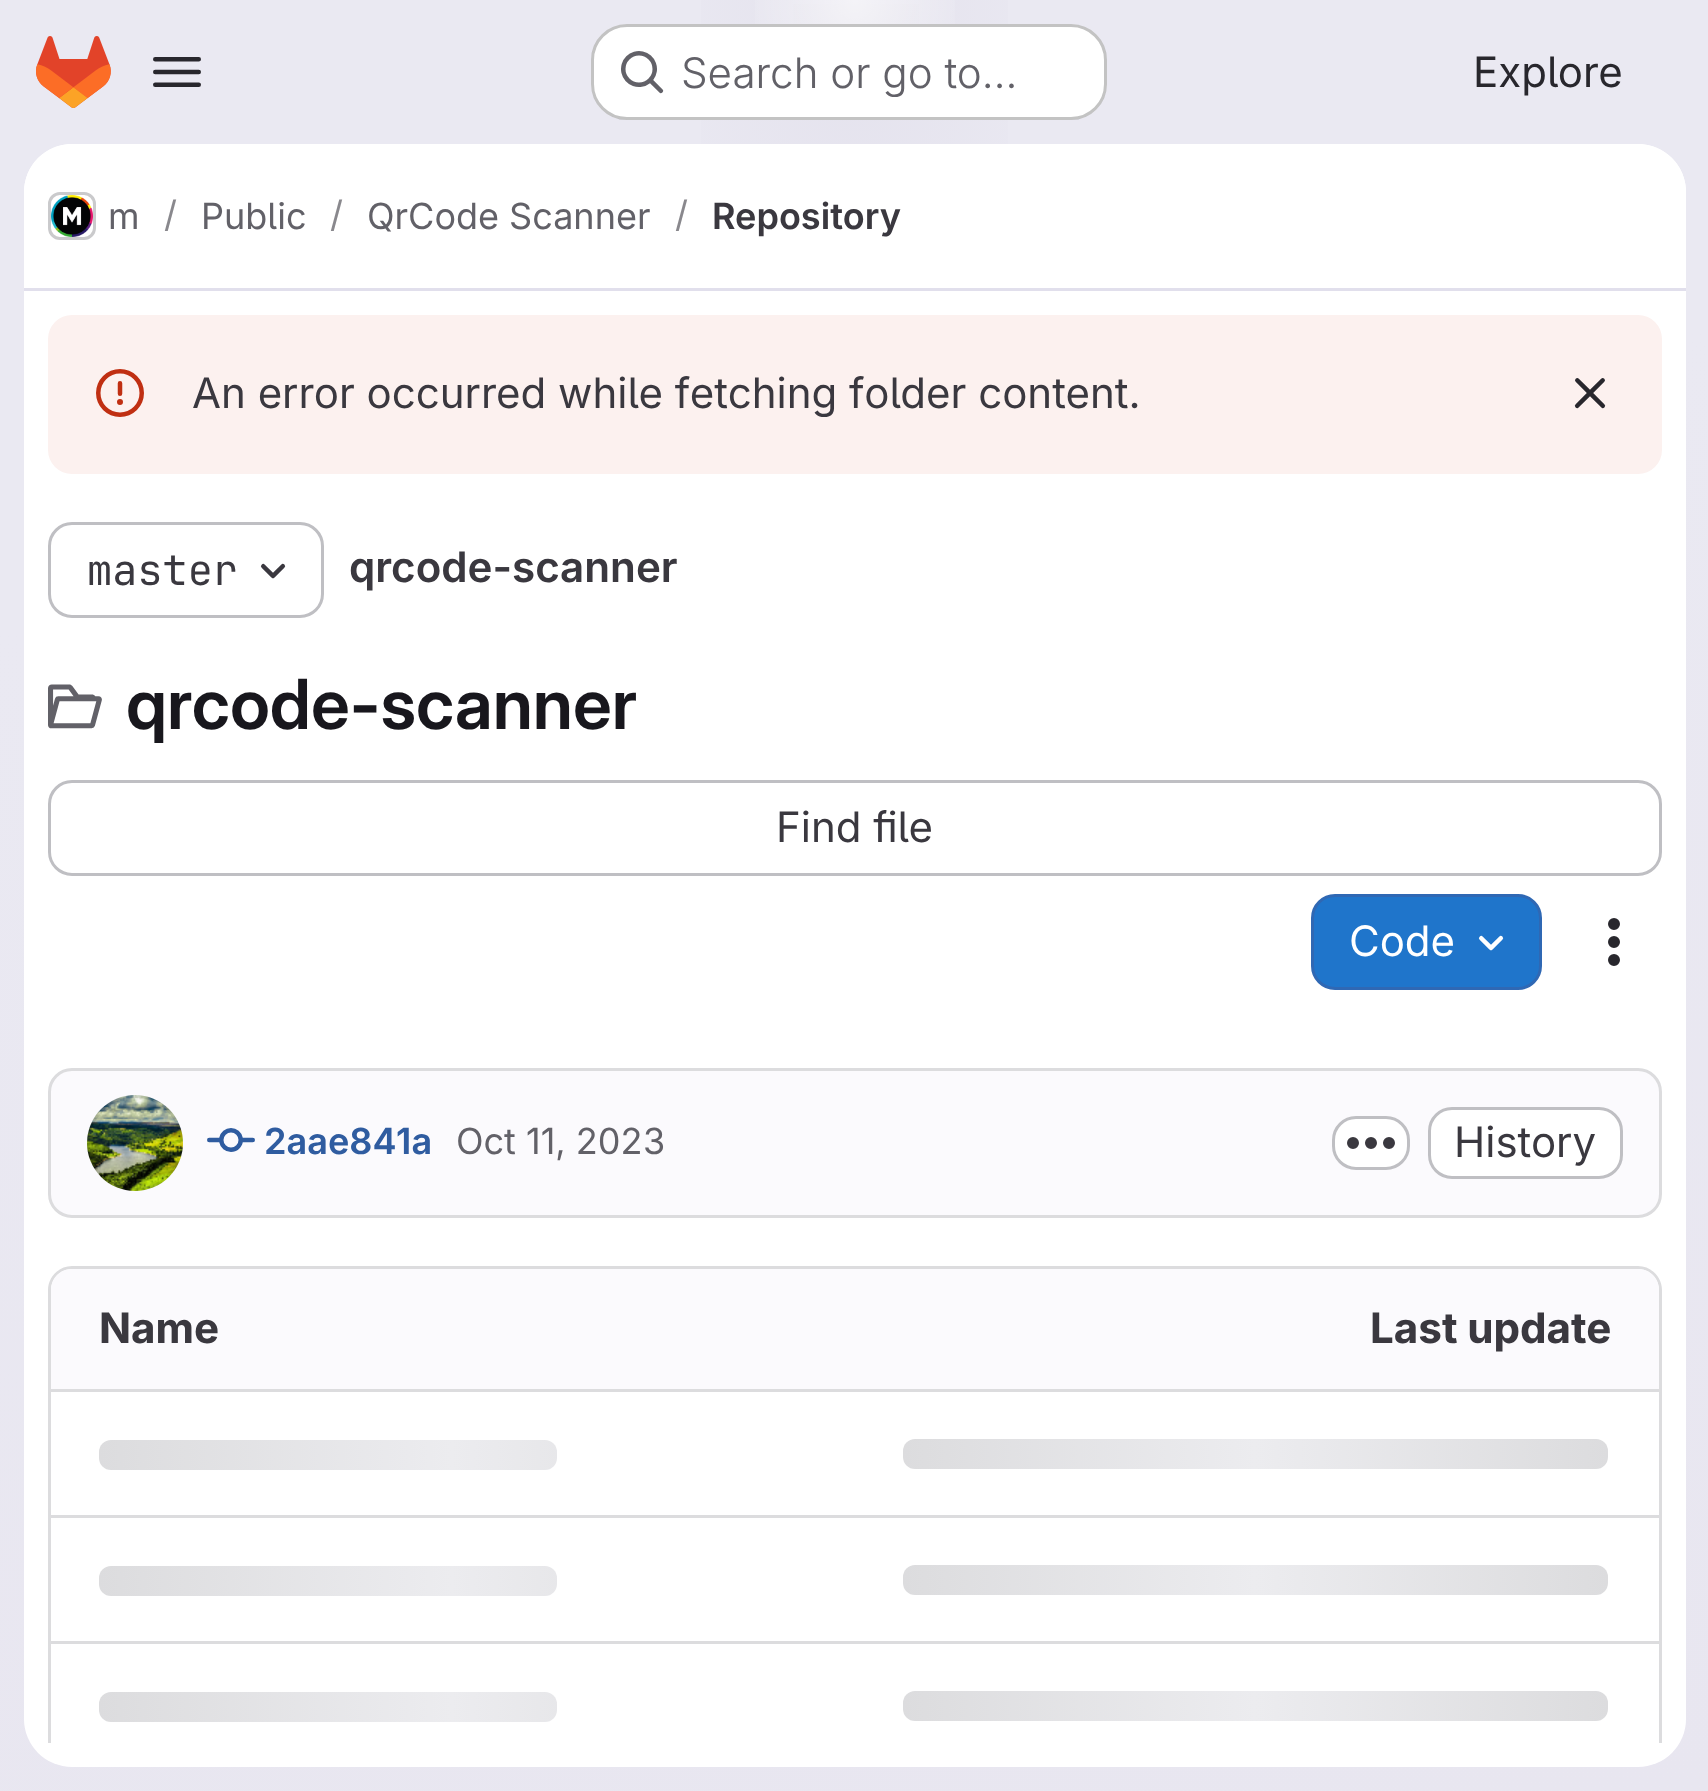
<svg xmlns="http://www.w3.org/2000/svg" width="1708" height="1791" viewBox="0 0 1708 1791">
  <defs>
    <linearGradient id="g1" gradientUnits="userSpaceOnUse" x1="1034" y1="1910" x2="676" y2="-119"><stop offset="0" stop-color="#e8e6f0"/><stop offset="0.7" stop-color="#eae9f2"/></linearGradient>
    <radialGradient id="g2" gradientUnits="userSpaceOnUse" cx="0" cy="0" r="1" gradientTransform="matrix(855 0 0 1791 855 0)"><stop offset="0" stop-color="#e4e2ed"/><stop offset="0.25" stop-color="#e4e2ed" stop-opacity="0"/></radialGradient>
    <radialGradient id="g3" gradientUnits="userSpaceOnUse" cx="0" cy="0" r="1" gradientTransform="matrix(855 0 0 1791 855 0)"><stop offset="0" stop-color="#e4e2ec"/><stop offset="0.18" stop-color="#e4e2ec" stop-opacity="0"/></radialGradient>
    <radialGradient id="g4" gradientUnits="userSpaceOnUse" cx="855" cy="0" r="1985"><stop offset="0" stop-color="#ffffff" stop-opacity="0.6"/><stop offset="0.06" stop-color="#ffffff" stop-opacity="0"/></radialGradient>
    <clipPath id="clip1"><rect x="24" y="291" width="1662" height="1452"/></clipPath>
    <linearGradient id="g5" gradientUnits="userSpaceOnUse" x1="903" y1="1439" x2="1608" y2="1439"><stop offset="0" stop-color="#dcdcde"/><stop offset="0.5" stop-color="#ececef"/><stop offset="1" stop-color="#dcdcde"/></linearGradient>
    <linearGradient id="g6" gradientUnits="userSpaceOnUse" x1="99" y1="1440" x2="804" y2="1440"><stop offset="0" stop-color="#dcdcde"/><stop offset="0.5" stop-color="#ececef"/><stop offset="1" stop-color="#dcdcde"/></linearGradient>
    <linearGradient id="g7" gradientUnits="userSpaceOnUse" x1="903" y1="1565" x2="1608" y2="1565"><stop offset="0" stop-color="#dcdcde"/><stop offset="0.5" stop-color="#ececef"/><stop offset="1" stop-color="#dcdcde"/></linearGradient>
    <linearGradient id="g8" gradientUnits="userSpaceOnUse" x1="99" y1="1566" x2="804" y2="1566"><stop offset="0" stop-color="#dcdcde"/><stop offset="0.5" stop-color="#ececef"/><stop offset="1" stop-color="#dcdcde"/></linearGradient>
    <linearGradient id="g9" gradientUnits="userSpaceOnUse" x1="903" y1="1691" x2="1608" y2="1691"><stop offset="0" stop-color="#dcdcde"/><stop offset="0.5" stop-color="#ececef"/><stop offset="1" stop-color="#dcdcde"/></linearGradient>
    <linearGradient id="g10" gradientUnits="userSpaceOnUse" x1="99" y1="1692" x2="804" y2="1692"><stop offset="0" stop-color="#dcdcde"/><stop offset="0.5" stop-color="#ececef"/><stop offset="1" stop-color="#dcdcde"/></linearGradient>
  </defs>
  <rect width="100%" height="100%" fill="#ffffff"/>
  <rect x="0" y="0" width="1708" height="1791" fill="url(#g1)"/>
  <rect x="701" y="0" width="307" height="144" fill="url(#g2)"/>
  <rect x="793" y="4" width="126" height="108" fill="url(#g3)"/>
  <rect x="755" y="0" width="200" height="24" fill="url(#g4)"/>
  <image x="36" y="36" width="75" height="72" href="img1.png"/>
  <image x="153" y="57" width="48" height="30" href="img2.png"/>
  <rect x="591" y="24" width="516" height="96" rx="36" fill="#ffffff"/>
  <rect x="592.5" y="25.5" width="513" height="93" rx="34.5" fill="none" stroke="#050506" stroke-opacity="0.24" stroke-width="3"/>
  <image x="621" y="51" width="43" height="43" href="img3.png"/>
  <text x="681" y="88" font-family="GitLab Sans" font-size="42" font-weight="300" fill="#626168">Search or go to…</text>
  <text x="1473" y="87" font-family="GitLab Sans" font-size="42" fill="#28272d">Explore</text>
  <rect x="24" y="144" width="1662" height="1623" rx="48" fill="#ffffff"/>
  <path d="M72 144H1638C1664.5 144 1686 165.5 1686 192V291H24V192C24 165.5 45.5 144 72 144Z" fill="#ffffff"/>
  <rect x="24" y="288" width="1662" height="3" fill="#e1dfec"/>
  <rect x="49.5" y="193.5" width="45" height="45" rx="10.5" fill="none" stroke="#dcdcde" stroke-width="3"/>
  <image x="51" y="195" width="42" height="42" href="img4.png"/>
  <rect x="49.5" y="193.5" width="45" height="45" rx="10.5" fill="none" stroke="#050506" stroke-opacity="0.08" stroke-width="3"/>
  <text x="108" y="229" font-family="GitLab Sans" font-size="36" fill="#626168">m</text>
  <text x="164" y="227" font-family="GitLab Sans" font-size="36" fill="#89888d">/</text>
  <text x="201" y="229" font-family="GitLab Sans" font-size="36" fill="#626168">Public</text>
  <text x="330" y="227" font-family="GitLab Sans" font-size="36" fill="#89888d">/</text>
  <text x="367" y="229" font-family="GitLab Sans" font-size="36" fill="#626168">QrCode Scanner</text>
  <text x="675" y="227" font-family="GitLab Sans" font-size="36" fill="#89888d">/</text>
  <text x="712" y="229" font-family="'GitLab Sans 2'" font-size="36" font-weight="600" fill="#3a383f">Repository</text>
  <rect x="48" y="315" width="1614" height="159" rx="24" fill="#fcf1ef"/>
  <image x="96" y="369" width="48" height="48" href="img5.png"/>
  <text x="192" y="408" font-family="GitLab Sans" font-size="42" fill="#3a383f">An error occurred while fetching folder content.</text>
  <image x="1574" y="378" width="32" height="31" href="img6.png"/>
  <rect x="49.5" y="523.5" width="273" height="93" rx="22.5" fill="none" stroke="#bfbfc3" stroke-width="3"/>
  <text x="87" y="585" font-family="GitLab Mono" font-size="42" fill="#3a383f">master</text>
  <image x="260" y="563" width="26" height="16" href="img7.png"/>
  <text x="349" y="582" font-family="'GitLab Sans 2'" font-size="42" font-weight="600" fill="#3a383f">qrcode-scanner</text>
  <image x="48" y="684" width="54" height="45" href="img8.png"/>
  <text x="126" y="729" font-family="GitLab Sans" font-size="69" font-weight="600" fill="#18171d">qrcode-scanner</text>
  <rect x="49.5" y="781.5" width="1611" height="93" rx="22.5" fill="none" stroke="#bfbfc3" stroke-width="3"/>
  <text x="776" y="842" font-family="GitLab Sans" font-size="42" fill="#3a383f">Find file</text>
  <rect x="1312.5" y="895.5" width="228" height="93" rx="22.5" fill="#1f75cb" stroke="#2f68b4" stroke-width="3"/>
  <text x="1349" y="956" font-family="GitLab Sans" font-size="42" fill="#ffffff">Code</text>
  <image x="1478" y="935" width="26" height="16" href="img9.png"/>
  <image x="1608" y="918" width="12" height="48" href="img10.png"/>
  <rect x="49.5" y="1069.5" width="1611" height="147" rx="22.5" fill="#fbfafd" stroke="#dcdcde" stroke-width="3"/>
  <image x="87" y="1095" width="96" height="96" href="img11.png"/>
  <circle cx="135" cy="1143" r="46.5" fill="none" stroke="#050506" stroke-opacity="0.08" stroke-width="3"/>
  <image x="207" y="1128" width="48" height="24" href="img12.png"/>
  <text x="264" y="1154" font-family="'GitLab Sans 2'" font-size="36" font-weight="600" fill="#2f5ca0">2aae841a</text>
  <text x="456" y="1154" font-family="GitLab Sans" font-size="36" fill="#626168">Oct 11, 2023</text>
  <rect x="1333.5" y="1117.5" width="75" height="51" rx="22.5" fill="#ffffff" stroke="#bfbfc3" stroke-width="3"/>
  <image x="1347" y="1137" width="48" height="12" href="img13.png"/>
  <rect x="1429.5" y="1108.5" width="192" height="69" rx="22.5" fill="#ffffff" stroke="#bfbfc3" stroke-width="3"/>
  <text x="1454" y="1157" font-family="GitLab Sans" font-size="42" fill="#3a383f">History</text>
  <g clip-path="url(#clip1)">
    <path d="M72 1266C59 1266 48 1277 48 1290V1746C48 1753 51 1760 57 1765C62 1766 67 1767 72 1767C60 1767 51 1758 51 1746V1290C51 1278 60 1269 72 1269H1638C1650 1269 1659 1278 1659 1290V1746C1659 1758 1650 1767 1638 1767C1643 1767 1648 1766 1653 1765C1659 1760 1662 1753 1662 1746V1290C1662 1277 1651 1266 1638 1266Z" fill="#dcdcde"/>
  </g>
  <path d="M72 1269H855V1389H51V1290C51 1278.5 60.5 1269 72 1269Z" fill="#fbfafd"/>
  <text x="99" y="1343" font-family="GitLab Sans" font-size="42" font-weight="bold" fill="#3a383f">Name</text>
  <path d="M855 1269H1638C1649.5 1269 1659 1278.5 1659 1290V1389H855Z" fill="#fbfafd"/>
  <text x="1370" y="1343" font-family="GitLab Sans" font-size="42" font-weight="bold" fill="#3a383f">Last update</text>
  <rect x="51" y="1389" width="1608" height="3" fill="#dcdcde"/>
  <rect x="903" y="1439" width="705" height="30" rx="12" fill="url(#g5)"/>
  <rect x="99" y="1440" width="458" height="30" rx="12" fill="url(#g6)"/>
  <rect x="51" y="1515" width="1608" height="3" fill="#dcdcde"/>
  <rect x="903" y="1565" width="705" height="30" rx="12" fill="url(#g7)"/>
  <rect x="99" y="1566" width="458" height="30" rx="12" fill="url(#g8)"/>
  <rect x="51" y="1641" width="1608" height="3" fill="#dcdcde"/>
  <rect x="903" y="1691" width="705" height="30" rx="12" fill="url(#g9)"/>
  <rect x="99" y="1692" width="458" height="30" rx="12" fill="url(#g10)"/>
</svg>
